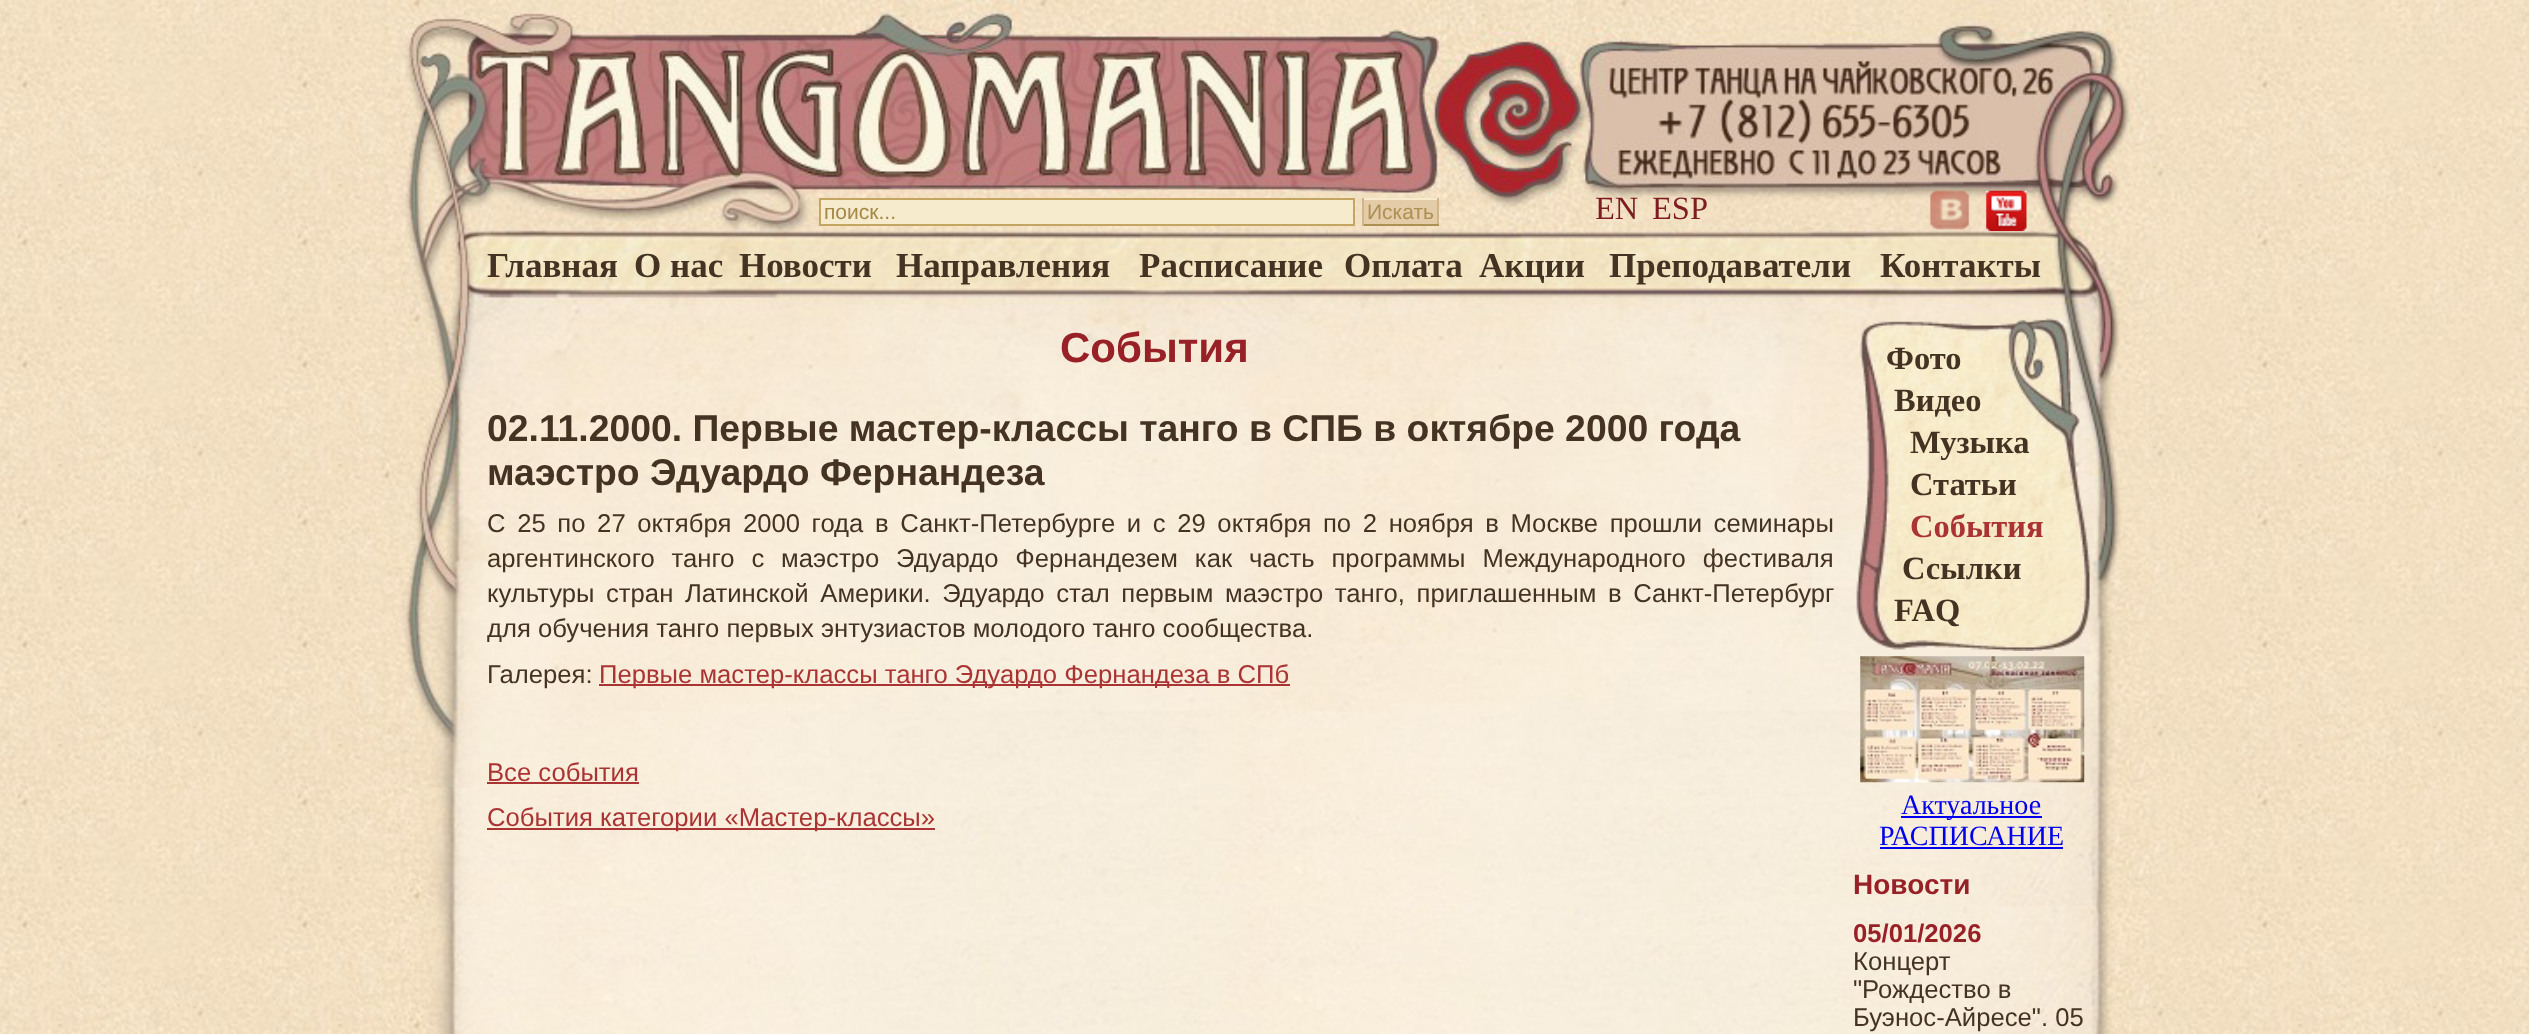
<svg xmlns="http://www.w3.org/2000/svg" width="2529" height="1034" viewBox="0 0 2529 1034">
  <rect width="100%" height="100%" fill="#ffffff"/>
  <image x="0" y="0" width="2529" height="1034" href="img1.png"/>
  <image x="381" y="0" width="1768" height="1034" href="img2.png"/>
  <image x="381" y="0" width="1768" height="788" href="img3.png"/>
  <rect x="820" y="199" width="534" height="26" fill="#f6ebcd" stroke="#c4a562" stroke-width="2"/>
  <text x="824" y="219" font-family="Liberation Sans" font-size="21" fill="#a58747">поиск...</text>
  <rect x="1364" y="200" width="73" height="24" fill="#e3cca7"/>
  <rect x="1362" y="198" width="77" height="2" fill="#f6ebcd"/>
  <rect x="1437" y="198" width="2" height="28" fill="#d1b589"/>
  <rect x="1362" y="224" width="77" height="2" fill="#ad9053"/>
  <rect x="1362" y="198" width="2" height="28" fill="#d1b589"/>
  <text x="1367" y="219" font-family="Liberation Sans" font-size="21" fill="#ad9053">Искать</text>
  <text x="1595" y="219" font-family="Liberation Serif" font-size="32.5" fill="#7d1d22">EN</text>
  <text x="1652" y="219" font-family="Liberation Serif" font-size="32.5" fill="#7d1d22">ESP</text>
  <image x="1929" y="190" width="41" height="40" href="img4.png"/>
  <image x="1986" y="190" width="41" height="41" href="img5.png"/>
  <text x="487" y="277" font-family="Liberation Serif" font-size="35" font-weight="bold" fill="#443322">Главная</text>
  <text x="634" y="277" font-family="Liberation Serif" font-size="35" font-weight="bold" fill="#443322">О нас</text>
  <text x="739" y="277" font-family="Liberation Serif" font-size="35" font-weight="bold" fill="#443322">Новости</text>
  <text x="896" y="277" font-family="Liberation Serif" font-size="35" font-weight="bold" fill="#443322">Направления</text>
  <text x="1139" y="277" font-family="Liberation Serif" font-size="35" font-weight="bold" fill="#443322">Расписание</text>
  <text x="1344" y="277" font-family="Liberation Serif" font-size="35" font-weight="bold" fill="#443322">Оплата</text>
  <text x="1479" y="277" font-family="Liberation Serif" font-size="35" font-weight="bold" fill="#443322">Акции</text>
  <text x="1609" y="277" font-family="Liberation Serif" font-size="35" font-weight="bold" fill="#443322">Преподаватели</text>
  <text x="1880" y="277" font-family="Liberation Serif" font-size="35" font-weight="bold" fill="#443322">Контакты</text>
  <text x="1060" y="362" font-family="Liberation Sans" font-size="42" font-weight="bold" fill="#982127">События</text>
  <text x="487" y="441" font-family="Liberation Sans" font-size="37.35" font-weight="bold" fill="#443322">02.11.2000. Первые мастер-классы танго в СПБ в октябре 2000 года</text>
  <text x="487" y="485" font-family="Liberation Sans" font-size="37.35" font-weight="bold" fill="#443322">маэстро Эдуардо Фернандеза</text>
  <text x="487" y="532" word-spacing="4.5" font-family="Liberation Sans" font-size="25.67" fill="#443322">С 25 по 27 октября 2000 года в Санкт-Петербурге и с 29 октября по 2 ноября в Москве прошли семинары</text>
  <text x="487" y="567" word-spacing="9.75" font-family="Liberation Sans" font-size="25.67" fill="#443322">аргентинского танго с маэстро Эдуардо Фернандезем как часть программы Международного фестиваля</text>
  <text x="487" y="602" word-spacing="4.5" font-family="Liberation Sans" font-size="25.67" fill="#443322">культуры стран Латинской Америки. Эдуардо стал первым маэстро танго, приглашенным в Санкт-Петербург</text>
  <text x="487" y="637" font-family="Liberation Sans" font-size="25.67" fill="#443322">для обучения танго первых энтузиастов молодого танго сообщества.</text>
  <text x="487" y="683" font-family="Liberation Sans" font-size="25.67" fill="#443322">Галерея:</text>
  <rect x="599" y="684" width="691" height="2" fill="#aa3333"/>
  <text x="599" y="683" font-family="Liberation Sans" font-size="25.67" fill="#aa3333">Первые мастер-классы танго Эдуардо Фернандеза в СПб</text>
  <text x="487" y="781" font-family="Liberation Sans" font-size="25.67" fill="#aa3333">Все события</text>
  <rect x="487" y="782" width="152" height="2" fill="#aa3333"/>
  <rect x="487" y="828" width="448" height="2" fill="#aa3333"/>
  <text x="487" y="826" font-family="Liberation Sans" font-size="25.67" fill="#aa3333">События категории «Мастер-классы»</text>
  <image x="1856" y="318" width="234" height="333" href="img6.png"/>
  <text x="1886" y="369" font-family="Liberation Serif" font-size="32.5" font-weight="bold" fill="#443322">Фото</text>
  <text x="1894" y="411" font-family="Liberation Serif" font-size="32.5" font-weight="bold" fill="#443322">Видео</text>
  <text x="1910" y="453" font-family="Liberation Serif" font-size="32.5" font-weight="bold" fill="#443322">Музыка</text>
  <text x="1910" y="495" font-family="Liberation Serif" font-size="32.5" font-weight="bold" fill="#443322">Статьи</text>
  <text x="1910" y="537" font-family="Liberation Serif" font-size="32.5" font-weight="bold" fill="#aa3333">События</text>
  <text x="1902" y="579" font-family="Liberation Serif" font-size="32.5" font-weight="bold" fill="#443322">Ссылки</text>
  <text x="1894" y="621" font-family="Liberation Serif" font-size="32.5" font-weight="bold" fill="#443322">FAQ</text>
  <image x="1860" y="656" width="225" height="127" href="img7.png"/>
  <rect x="1901" y="816" width="141" height="2" fill="#0000ee"/>
  <text x="1901" y="814" font-family="Liberation Serif" font-size="28" fill="#0000ee">Актуальное</text>
  <text x="1879" y="845" font-family="Liberation Serif" font-size="28" fill="#0000ee">РАСПИСАНИЕ</text>
  <rect x="1880" y="847" width="183" height="2" fill="#0000ee"/>
  <text x="1853" y="894" font-family="Liberation Sans" font-size="28" font-weight="bold" fill="#982127">Новости</text>
  <text x="1853" y="942" font-family="Liberation Sans" font-size="25.67" font-weight="bold" fill="#982127">05/01/2026</text>
  <text x="1853" y="970" font-family="Liberation Sans" font-size="25.67" fill="#443322">Концерт</text>
  <text x="1853" y="998" font-family="Liberation Sans" font-size="25.67" fill="#443322">"Рождество в</text>
  <text x="1853" y="1026" font-family="Liberation Sans" font-size="25.67" fill="#443322">Буэнос-Айресе". 05</text>
</svg>
